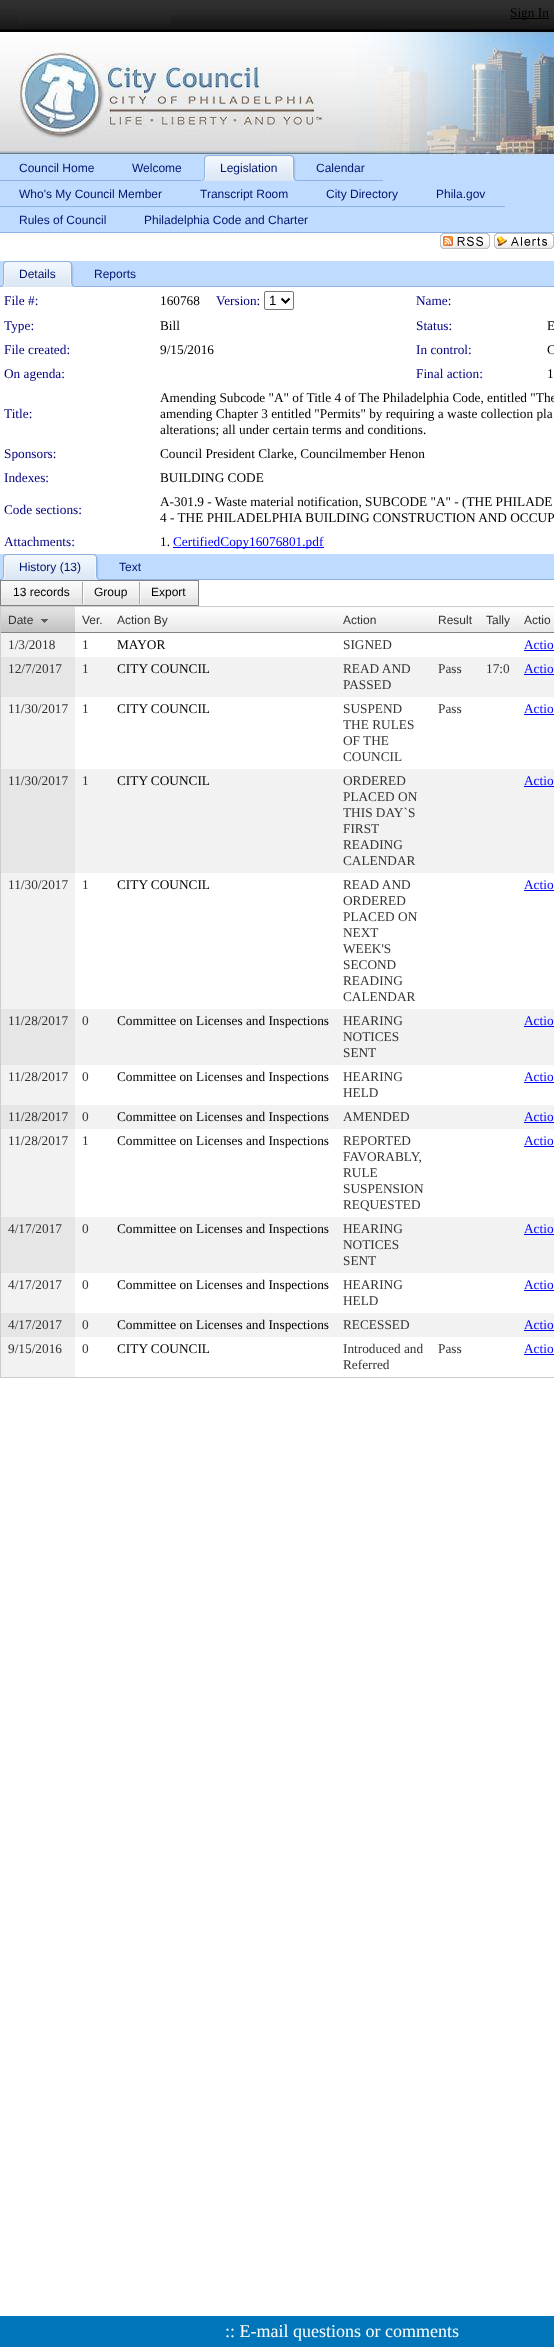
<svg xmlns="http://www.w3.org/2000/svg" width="554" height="2348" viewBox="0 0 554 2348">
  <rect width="100%" height="100%" fill="#ffffff"/>
  <image x="0" y="0" width="554" height="15" href="img1.png"/>
  <image x="0" y="15" width="554" height="140" href="img2.png"/>
  <rect x="510" y="18" width="39" height="1" fill="#000000"/>
  <text x="510" y="17" font-family="Liberation Serif" font-size="13.3" fill="#000000">Sign In</text>
  <rect x="0" y="155" width="554" height="77" fill="#bfdbff"/>
  <rect x="0" y="232" width="554" height="1" fill="#8db2e3"/>
  <rect x="0" y="180" width="201" height="1" fill="#8db2e3"/>
  <text x="19" y="172" font-family="Liberation Sans" font-size="12" fill="#00156e">Council Home</text>
  <text x="132" y="172" font-family="Liberation Sans" font-size="12" fill="#00156e">Welcome</text>
  <image x="202" y="155" width="8" height="26" href="img3.png"/>
  <image x="210" y="155" width="87" height="26" href="img4.png"/>
  <text x="220" y="172" font-family="Liberation Sans" font-size="12" fill="#00156e">Legislation</text>
  <rect x="297" y="180" width="86" height="1" fill="#8db2e3"/>
  <text x="316" y="172" font-family="Liberation Sans" font-size="12" fill="#00156e">Calendar</text>
  <rect x="0" y="206" width="505" height="1" fill="#8db2e3"/>
  <text x="19" y="198" font-family="Liberation Sans" font-size="12" fill="#00156e">Who's My Council Member</text>
  <text x="200" y="198" font-family="Liberation Sans" font-size="12" fill="#00156e">Transcript Room</text>
  <text x="326" y="198" font-family="Liberation Sans" font-size="12" fill="#00156e">City Directory</text>
  <text x="436" y="198" font-family="Liberation Sans" font-size="12" fill="#00156e">Phila.gov</text>
  <text x="19" y="224" font-family="Liberation Sans" font-size="12" fill="#00156e">Rules of Council</text>
  <text x="144" y="224" font-family="Liberation Sans" font-size="12" fill="#00156e">Philadelphia Code and Charter</text>
  <image x="440" y="233" width="50" height="16" href="img5.png"/>
  <image x="494" y="233" width="60" height="16" href="img6.png"/>
  <rect x="0" y="261" width="554" height="25" fill="#bfdbff"/>
  <rect x="0" y="286" width="554" height="1" fill="#8db2e3"/>
  <image x="1" y="261" width="8" height="26" href="img7.png"/>
  <image x="9" y="261" width="66" height="26" href="img8.png"/>
  <text x="19" y="278" font-family="Liberation Sans" font-size="12" fill="#00156e">Details</text>
  <text x="94" y="278" font-family="Liberation Sans" font-size="12" fill="#00156e">Reports</text>
  <text x="4" y="305" font-family="Liberation Serif" font-size="13.3" fill="#000080">File #:</text>
  <text x="160" y="305" font-family="Liberation Serif" font-size="13.3" fill="#000000">160768</text>
  <text x="216" y="305" font-family="Liberation Serif" font-size="13.3" fill="#000080">Version:</text>
  <rect x="264.5" y="291.5" width="29" height="18" rx="1.5" fill="none" stroke="#767676"/>
  <path d="M281.5 298.5L285.5 302.5L289.5 298.5" fill="none" stroke="#000000" stroke-width="2"/>
  <text x="269" y="305" font-family="Liberation Sans" font-size="13.3" fill="#000000">1</text>
  <text x="416" y="305" font-family="Liberation Serif" font-size="13.3" fill="#000080">Name:</text>
  <text x="4" y="330" font-family="Liberation Serif" font-size="13.3" fill="#000080">Type:</text>
  <text x="160" y="330" font-family="Liberation Serif" font-size="13.3" fill="#000000">Bill</text>
  <text x="416" y="330" font-family="Liberation Serif" font-size="13.3" fill="#000080">Status:</text>
  <text x="547" y="330" font-family="Liberation Serif" font-size="13.3" fill="#000000">E</text>
  <text x="4" y="354" font-family="Liberation Serif" font-size="13.3" fill="#000080">File created:</text>
  <text x="160" y="354" font-family="Liberation Serif" font-size="13.3" fill="#000000">9/15/2016</text>
  <text x="416" y="354" font-family="Liberation Serif" font-size="13.3" fill="#000080">In control:</text>
  <text x="547" y="354" font-family="Liberation Serif" font-size="13.3" fill="#000000">C</text>
  <text x="4" y="378" font-family="Liberation Serif" font-size="13.3" fill="#000080">On agenda:</text>
  <text x="416" y="378" font-family="Liberation Serif" font-size="13.3" fill="#000080">Final action:</text>
  <text x="547" y="378" font-family="Liberation Serif" font-size="13.3" fill="#000000">1</text>
  <text x="4" y="418" font-family="Liberation Serif" font-size="13.3" fill="#000080">Title:</text>
  <text x="160" y="402" font-family="Liberation Serif" font-size="13.3" fill="#000000">Amending Subcode "A" of Title 4 of The Philadelphia Code, entitled "The</text>
  <text x="160" y="418" font-family="Liberation Serif" font-size="13.3" fill="#000000">amending Chapter 3 entitled "Permits" by requiring a waste collection pla</text>
  <text x="160" y="434" font-family="Liberation Serif" font-size="13.3" fill="#000000">alterations; all under certain terms and conditions.</text>
  <text x="4" y="458" font-family="Liberation Serif" font-size="13.3" fill="#000080">Sponsors:</text>
  <text x="160" y="458" font-family="Liberation Serif" font-size="13.3" fill="#000000">Council President Clarke, Councilmember Henon</text>
  <text x="4" y="482" font-family="Liberation Serif" font-size="13.3" fill="#000080">Indexes:</text>
  <text x="160" y="482" font-family="Liberation Serif" font-size="13.3" fill="#000000">BUILDING CODE</text>
  <text x="4" y="514" font-family="Liberation Serif" font-size="13.3" fill="#000080">Code sections:</text>
  <text x="160" y="506" font-family="Liberation Serif" font-size="13.3" fill="#000000">A-301.9 - Waste material notification, SUBCODE "A" - (THE PHILADE</text>
  <text x="160" y="522" font-family="Liberation Serif" font-size="13.3" fill="#000000">4 - THE PHILADELPHIA BUILDING CONSTRUCTION AND OCCUP</text>
  <text x="4" y="546" font-family="Liberation Serif" font-size="13.3" fill="#000080">Attachments:</text>
  <text x="160" y="546" font-family="Liberation Serif" font-size="13.3" fill="#000000">1.</text>
  <rect x="173" y="547" width="151" height="1" fill="#0000ff"/>
  <text x="173" y="546" font-family="Liberation Serif" font-size="13.3" fill="#0000ff">CertifiedCopy16076801.pdf</text>
  <rect x="0" y="554" width="554" height="25" fill="#bfdbff"/>
  <rect x="0" y="579" width="554" height="1" fill="#8db2e3"/>
  <image x="1" y="554" width="8" height="26" href="img9.png"/>
  <image x="9" y="554" width="91" height="26" href="img10.png"/>
  <text x="19" y="571" font-family="Liberation Sans" font-size="12" fill="#00156e">History (13)</text>
  <text x="119" y="571" font-family="Liberation Sans" font-size="12" fill="#00156e">Text</text>
  <rect x="1" y="599" width="197" height="6" fill="#e6e6e6"/>
  <image x="1" y="581" width="197" height="18" href="img11.png"/>
  <rect x="0.5" y="580.5" width="198" height="25" fill="none" stroke="#828282"/>
  <text x="13" y="596" font-family="Liberation Sans" font-size="12" fill="#000000">13 records</text>
  <image x="82" y="582" width="2" height="22" href="img12.png"/>
  <text x="94" y="596" font-family="Liberation Sans" font-size="12" fill="#000000">Group</text>
  <image x="139" y="582" width="2" height="22" href="img13.png"/>
  <text x="151" y="596" font-family="Liberation Sans" font-size="12" fill="#000000">Export</text>
  <rect x="0.5" y="606.5" width="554" height="771" fill="none" stroke="#cccccc"/>
  <rect x="1" y="628" width="74" height="4" fill="#c4c4c4"/>
  <image x="1" y="607" width="74" height="21" href="img14.png"/>
  <rect x="1" y="632" width="553" height="1" fill="#828282"/>
  <text x="8" y="624" font-family="Liberation Sans" font-size="12" fill="#333333">Date</text>
  <image x="41" y="619" width="7" height="4" href="img15.png"/>
  <rect x="75" y="627" width="479" height="5" fill="#eaeaea"/>
  <image x="75" y="607" width="35" height="20" href="img16.png"/>
  <text x="82" y="624" font-family="Liberation Sans" font-size="12" fill="#333333">Ver.</text>
  <image x="110" y="607" width="226" height="20" href="img17.png"/>
  <text x="117" y="624" font-family="Liberation Sans" font-size="12" fill="#333333">Action By</text>
  <image x="336" y="607" width="95" height="20" href="img18.png"/>
  <text x="343" y="624" font-family="Liberation Sans" font-size="12" fill="#333333">Action</text>
  <image x="431" y="607" width="48" height="20" href="img19.png"/>
  <text x="438" y="624" font-family="Liberation Sans" font-size="12" fill="#333333">Result</text>
  <image x="479" y="607" width="38" height="20" href="img20.png"/>
  <text x="486" y="624" font-family="Liberation Sans" font-size="12" fill="#333333">Tally</text>
  <image x="517" y="607" width="37" height="20" href="img21.png"/>
  <text x="524" y="624" font-family="Liberation Sans" font-size="12" fill="#333333">Actio</text>
  <rect x="1" y="633" width="74" height="24" fill="#f2f2f2"/>
  <text x="8" y="649" font-family="Liberation Serif" font-size="13.3" fill="#333333">1/3/2018</text>
  <text x="82" y="649" font-family="Liberation Serif" font-size="13.3" fill="#333333">1</text>
  <text x="117" y="649" font-family="Liberation Serif" font-size="13.3" fill="#000000">MAYOR</text>
  <text x="343" y="649" font-family="Liberation Serif" font-size="13.3" fill="#333333">SIGNED</text>
  <text x="524" y="649" font-family="Liberation Serif" font-size="13.3" fill="#0000ff">Actio</text>
  <rect x="524" y="650" width="30" height="1" fill="#0000ff"/>
  <rect x="75" y="657" width="479" height="40" fill="#f2f2f2"/>
  <rect x="1" y="657" width="74" height="40" fill="#e6e6e6"/>
  <text x="8" y="673" font-family="Liberation Serif" font-size="13.3" fill="#333333">12/7/2017</text>
  <text x="82" y="673" font-family="Liberation Serif" font-size="13.3" fill="#333333">1</text>
  <text x="117" y="673" font-family="Liberation Serif" font-size="13.3" fill="#000000">CITY COUNCIL</text>
  <text x="343" y="673" font-family="Liberation Serif" font-size="13.3" fill="#333333">READ AND</text>
  <text x="343" y="689" font-family="Liberation Serif" font-size="13.3" fill="#333333">PASSED</text>
  <text x="438" y="673" font-family="Liberation Serif" font-size="13.3" fill="#333333">Pass</text>
  <text x="486" y="673" font-family="Liberation Serif" font-size="13.3" fill="#333333">17:0</text>
  <text x="524" y="673" font-family="Liberation Serif" font-size="13.3" fill="#0000ff">Actio</text>
  <rect x="524" y="674" width="30" height="1" fill="#0000ff"/>
  <rect x="1" y="697" width="74" height="72" fill="#f2f2f2"/>
  <text x="8" y="713" font-family="Liberation Serif" font-size="13.3" fill="#333333">11/30/2017</text>
  <text x="82" y="713" font-family="Liberation Serif" font-size="13.3" fill="#333333">1</text>
  <text x="117" y="713" font-family="Liberation Serif" font-size="13.3" fill="#000000">CITY COUNCIL</text>
  <text x="343" y="713" font-family="Liberation Serif" font-size="13.3" fill="#333333">SUSPEND</text>
  <text x="343" y="729" font-family="Liberation Serif" font-size="13.3" fill="#333333">THE RULES</text>
  <text x="343" y="745" font-family="Liberation Serif" font-size="13.3" fill="#333333">OF THE</text>
  <text x="343" y="761" font-family="Liberation Serif" font-size="13.3" fill="#333333">COUNCIL</text>
  <text x="438" y="713" font-family="Liberation Serif" font-size="13.3" fill="#333333">Pass</text>
  <text x="524" y="713" font-family="Liberation Serif" font-size="13.3" fill="#0000ff">Actio</text>
  <rect x="524" y="714" width="30" height="1" fill="#0000ff"/>
  <rect x="75" y="769" width="479" height="104" fill="#f2f2f2"/>
  <rect x="1" y="769" width="74" height="104" fill="#e6e6e6"/>
  <text x="8" y="785" font-family="Liberation Serif" font-size="13.3" fill="#333333">11/30/2017</text>
  <text x="82" y="785" font-family="Liberation Serif" font-size="13.3" fill="#333333">1</text>
  <text x="117" y="785" font-family="Liberation Serif" font-size="13.3" fill="#000000">CITY COUNCIL</text>
  <text x="343" y="785" font-family="Liberation Serif" font-size="13.3" fill="#333333">ORDERED</text>
  <text x="343" y="801" font-family="Liberation Serif" font-size="13.3" fill="#333333">PLACED ON</text>
  <text x="343" y="817" font-family="Liberation Serif" font-size="13.3" fill="#333333">THIS DAY`S</text>
  <text x="343" y="833" font-family="Liberation Serif" font-size="13.3" fill="#333333">FIRST</text>
  <text x="343" y="849" font-family="Liberation Serif" font-size="13.3" fill="#333333">READING</text>
  <text x="343" y="865" font-family="Liberation Serif" font-size="13.3" fill="#333333">CALENDAR</text>
  <text x="524" y="785" font-family="Liberation Serif" font-size="13.3" fill="#0000ff">Actio</text>
  <rect x="524" y="786" width="30" height="1" fill="#0000ff"/>
  <rect x="1" y="873" width="74" height="136" fill="#f2f2f2"/>
  <text x="8" y="889" font-family="Liberation Serif" font-size="13.3" fill="#333333">11/30/2017</text>
  <text x="82" y="889" font-family="Liberation Serif" font-size="13.3" fill="#333333">1</text>
  <text x="117" y="889" font-family="Liberation Serif" font-size="13.3" fill="#000000">CITY COUNCIL</text>
  <text x="343" y="889" font-family="Liberation Serif" font-size="13.3" fill="#333333">READ AND</text>
  <text x="343" y="905" font-family="Liberation Serif" font-size="13.3" fill="#333333">ORDERED</text>
  <text x="343" y="921" font-family="Liberation Serif" font-size="13.3" fill="#333333">PLACED ON</text>
  <text x="343" y="937" font-family="Liberation Serif" font-size="13.3" fill="#333333">NEXT</text>
  <text x="343" y="953" font-family="Liberation Serif" font-size="13.3" fill="#333333">WEEK'S</text>
  <text x="343" y="969" font-family="Liberation Serif" font-size="13.3" fill="#333333">SECOND</text>
  <text x="343" y="985" font-family="Liberation Serif" font-size="13.3" fill="#333333">READING</text>
  <text x="343" y="1001" font-family="Liberation Serif" font-size="13.3" fill="#333333">CALENDAR</text>
  <text x="524" y="889" font-family="Liberation Serif" font-size="13.3" fill="#0000ff">Actio</text>
  <rect x="524" y="890" width="30" height="1" fill="#0000ff"/>
  <rect x="75" y="1009" width="479" height="56" fill="#f2f2f2"/>
  <rect x="1" y="1009" width="74" height="56" fill="#e6e6e6"/>
  <text x="8" y="1025" font-family="Liberation Serif" font-size="13.3" fill="#333333">11/28/2017</text>
  <text x="82" y="1025" font-family="Liberation Serif" font-size="13.3" fill="#333333">0</text>
  <text x="117" y="1025" font-family="Liberation Serif" font-size="13.3" fill="#000000">Committee on Licenses and Inspections</text>
  <text x="343" y="1025" font-family="Liberation Serif" font-size="13.3" fill="#333333">HEARING</text>
  <text x="343" y="1041" font-family="Liberation Serif" font-size="13.3" fill="#333333">NOTICES</text>
  <text x="343" y="1057" font-family="Liberation Serif" font-size="13.3" fill="#333333">SENT</text>
  <text x="524" y="1025" font-family="Liberation Serif" font-size="13.3" fill="#0000ff">Actio</text>
  <rect x="524" y="1026" width="30" height="1" fill="#0000ff"/>
  <rect x="1" y="1065" width="74" height="40" fill="#f2f2f2"/>
  <text x="8" y="1081" font-family="Liberation Serif" font-size="13.3" fill="#333333">11/28/2017</text>
  <text x="82" y="1081" font-family="Liberation Serif" font-size="13.3" fill="#333333">0</text>
  <text x="117" y="1081" font-family="Liberation Serif" font-size="13.3" fill="#000000">Committee on Licenses and Inspections</text>
  <text x="343" y="1081" font-family="Liberation Serif" font-size="13.3" fill="#333333">HEARING</text>
  <text x="343" y="1097" font-family="Liberation Serif" font-size="13.3" fill="#333333">HELD</text>
  <text x="524" y="1081" font-family="Liberation Serif" font-size="13.3" fill="#0000ff">Actio</text>
  <rect x="524" y="1082" width="30" height="1" fill="#0000ff"/>
  <rect x="75" y="1105" width="479" height="24" fill="#f2f2f2"/>
  <rect x="1" y="1105" width="74" height="24" fill="#e6e6e6"/>
  <text x="8" y="1121" font-family="Liberation Serif" font-size="13.3" fill="#333333">11/28/2017</text>
  <text x="82" y="1121" font-family="Liberation Serif" font-size="13.3" fill="#333333">0</text>
  <text x="117" y="1121" font-family="Liberation Serif" font-size="13.3" fill="#000000">Committee on Licenses and Inspections</text>
  <text x="343" y="1121" font-family="Liberation Serif" font-size="13.3" fill="#333333">AMENDED</text>
  <text x="524" y="1121" font-family="Liberation Serif" font-size="13.3" fill="#0000ff">Actio</text>
  <rect x="524" y="1122" width="30" height="1" fill="#0000ff"/>
  <rect x="1" y="1129" width="74" height="88" fill="#f2f2f2"/>
  <text x="8" y="1145" font-family="Liberation Serif" font-size="13.3" fill="#333333">11/28/2017</text>
  <text x="82" y="1145" font-family="Liberation Serif" font-size="13.3" fill="#333333">1</text>
  <text x="117" y="1145" font-family="Liberation Serif" font-size="13.3" fill="#000000">Committee on Licenses and Inspections</text>
  <text x="343" y="1145" font-family="Liberation Serif" font-size="13.3" fill="#333333">REPORTED</text>
  <text x="343" y="1161" font-family="Liberation Serif" font-size="13.3" fill="#333333">FAVORABLY,</text>
  <text x="343" y="1177" font-family="Liberation Serif" font-size="13.3" fill="#333333">RULE</text>
  <text x="343" y="1193" font-family="Liberation Serif" font-size="13.3" fill="#333333">SUSPENSION</text>
  <text x="343" y="1209" font-family="Liberation Serif" font-size="13.3" fill="#333333">REQUESTED</text>
  <text x="524" y="1145" font-family="Liberation Serif" font-size="13.3" fill="#0000ff">Actio</text>
  <rect x="524" y="1146" width="30" height="1" fill="#0000ff"/>
  <rect x="75" y="1217" width="479" height="56" fill="#f2f2f2"/>
  <rect x="1" y="1217" width="74" height="56" fill="#e6e6e6"/>
  <text x="8" y="1233" font-family="Liberation Serif" font-size="13.3" fill="#333333">4/17/2017</text>
  <text x="82" y="1233" font-family="Liberation Serif" font-size="13.3" fill="#333333">0</text>
  <text x="117" y="1233" font-family="Liberation Serif" font-size="13.3" fill="#000000">Committee on Licenses and Inspections</text>
  <text x="343" y="1233" font-family="Liberation Serif" font-size="13.3" fill="#333333">HEARING</text>
  <text x="343" y="1249" font-family="Liberation Serif" font-size="13.3" fill="#333333">NOTICES</text>
  <text x="343" y="1265" font-family="Liberation Serif" font-size="13.3" fill="#333333">SENT</text>
  <text x="524" y="1233" font-family="Liberation Serif" font-size="13.3" fill="#0000ff">Actio</text>
  <rect x="524" y="1234" width="30" height="1" fill="#0000ff"/>
  <rect x="1" y="1273" width="74" height="40" fill="#f2f2f2"/>
  <text x="8" y="1289" font-family="Liberation Serif" font-size="13.3" fill="#333333">4/17/2017</text>
  <text x="82" y="1289" font-family="Liberation Serif" font-size="13.3" fill="#333333">0</text>
  <text x="117" y="1289" font-family="Liberation Serif" font-size="13.3" fill="#000000">Committee on Licenses and Inspections</text>
  <text x="343" y="1289" font-family="Liberation Serif" font-size="13.3" fill="#333333">HEARING</text>
  <text x="343" y="1305" font-family="Liberation Serif" font-size="13.3" fill="#333333">HELD</text>
  <text x="524" y="1289" font-family="Liberation Serif" font-size="13.3" fill="#0000ff">Actio</text>
  <rect x="524" y="1290" width="30" height="1" fill="#0000ff"/>
  <rect x="75" y="1313" width="479" height="24" fill="#f2f2f2"/>
  <rect x="1" y="1313" width="74" height="24" fill="#e6e6e6"/>
  <text x="8" y="1329" font-family="Liberation Serif" font-size="13.3" fill="#333333">4/17/2017</text>
  <text x="82" y="1329" font-family="Liberation Serif" font-size="13.3" fill="#333333">0</text>
  <text x="117" y="1329" font-family="Liberation Serif" font-size="13.3" fill="#000000">Committee on Licenses and Inspections</text>
  <text x="343" y="1329" font-family="Liberation Serif" font-size="13.3" fill="#333333">RECESSED</text>
  <text x="524" y="1329" font-family="Liberation Serif" font-size="13.3" fill="#0000ff">Actio</text>
  <rect x="524" y="1330" width="30" height="1" fill="#0000ff"/>
  <rect x="1" y="1337" width="74" height="40" fill="#f2f2f2"/>
  <text x="8" y="1353" font-family="Liberation Serif" font-size="13.3" fill="#333333">9/15/2016</text>
  <text x="82" y="1353" font-family="Liberation Serif" font-size="13.3" fill="#333333">0</text>
  <text x="117" y="1353" font-family="Liberation Serif" font-size="13.3" fill="#000000">CITY COUNCIL</text>
  <text x="343" y="1353" font-family="Liberation Serif" font-size="13.3" fill="#333333">Introduced and</text>
  <text x="343" y="1369" font-family="Liberation Serif" font-size="13.3" fill="#333333">Referred</text>
  <text x="438" y="1353" font-family="Liberation Serif" font-size="13.3" fill="#333333">Pass</text>
  <text x="524" y="1353" font-family="Liberation Serif" font-size="13.3" fill="#0000ff">Actio</text>
  <rect x="524" y="1354" width="30" height="1" fill="#0000ff"/>
  <rect x="0" y="2316" width="554" height="31" fill="#0075ba"/>
  <text x="225" y="2337" font-family="Liberation Serif" font-size="18" fill="#ffffff">:: E-mail questions or comments</text>
</svg>
